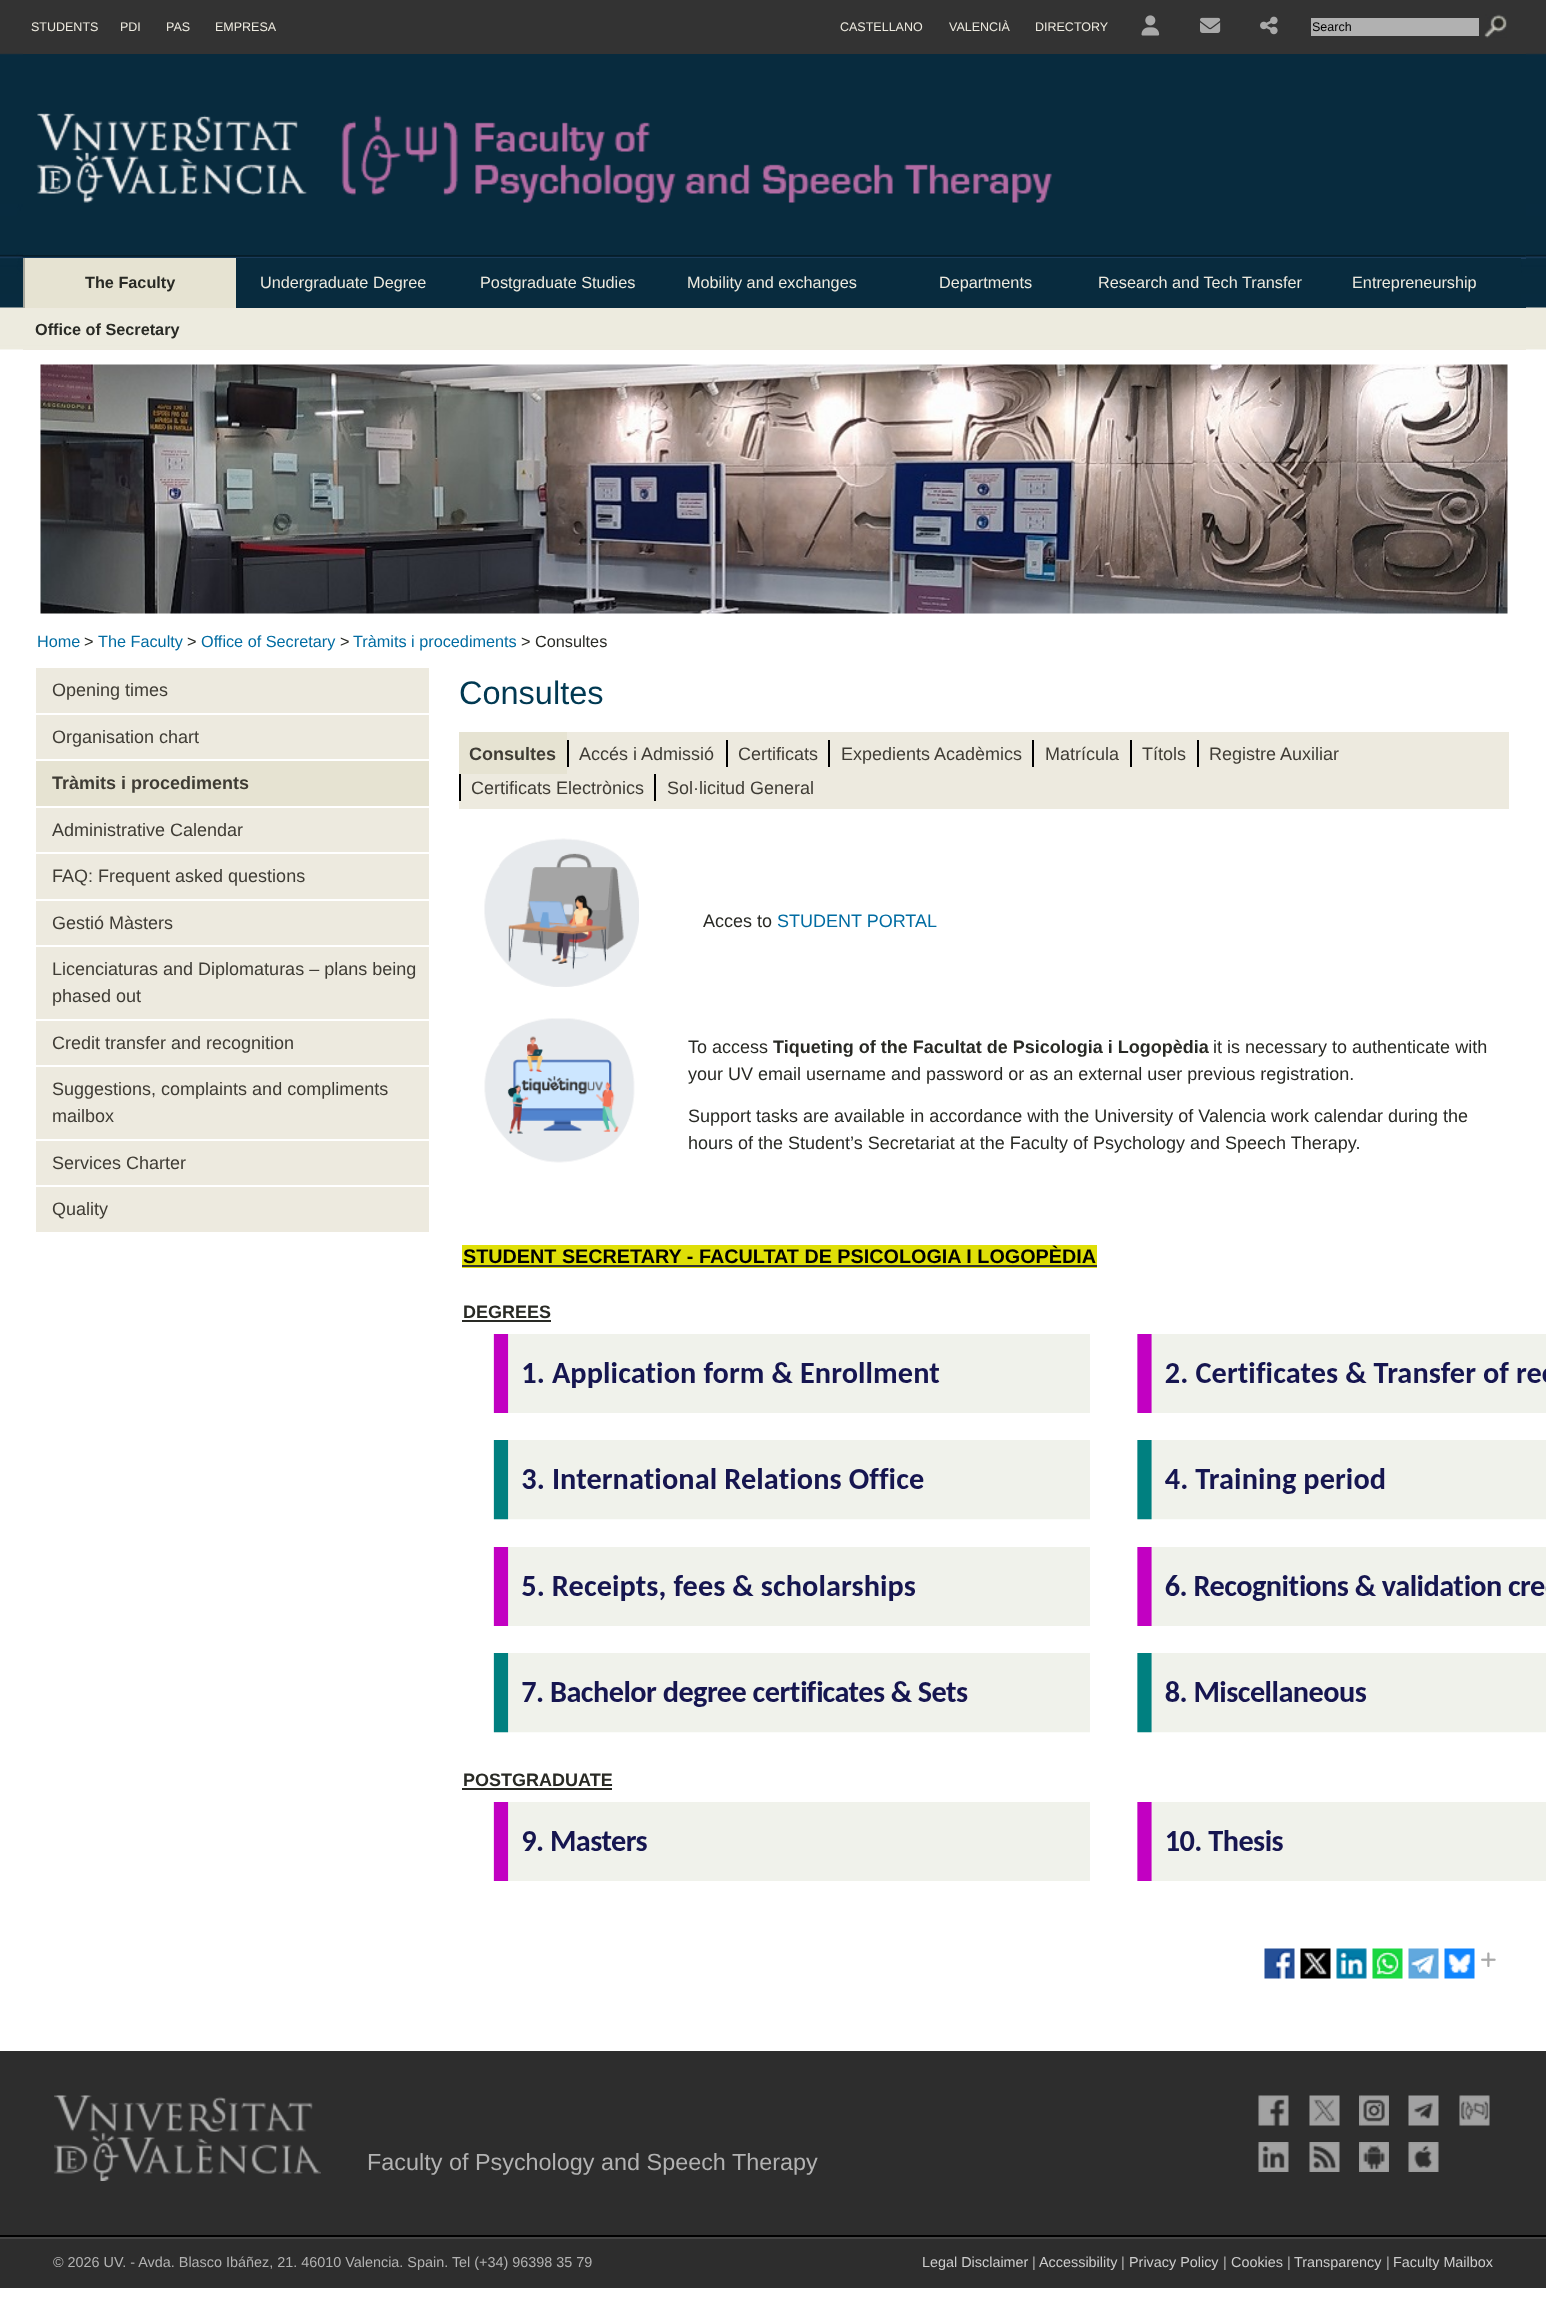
<svg xmlns="http://www.w3.org/2000/svg" width="1546" height="2311" viewBox="0 0 1546 2311">
  <defs>
    <clipPath id="clip1"><rect x="1313" y="18" width="166" height="18"/></clipPath>
  </defs>
  <rect width="100%" height="100%" fill="#ffffff"/>
  <image x="0" y="0" width="1546" height="350" href="img1.png"/>
  <rect x="23" y="53" width="1503" height="1" fill="#333333"/>
  <text x="31" y="31" font-family="Liberation Sans" font-size="12.5" fill="#edeadf">STUDENTS</text>
  <text x="120" y="31" font-family="Liberation Sans" font-size="12.5" fill="#edeadf">PDI</text>
  <text x="166" y="31" font-family="Liberation Sans" font-size="12.5" fill="#edeadf">PAS</text>
  <text x="215" y="31" font-family="Liberation Sans" font-size="12.5" fill="#edeadf">EMPRESA</text>
  <text x="840" y="31" font-family="Liberation Sans" font-size="12.5" fill="#edeadf">CASTELLANO</text>
  <text x="949" y="31" font-family="Liberation Sans" font-size="12.5" fill="#edeadf">VALENCIÀ</text>
  <text x="1035" y="31" font-family="Liberation Sans" font-size="12.5" fill="#edeadf">DIRECTORY</text>
  <image x="1141" y="15" width="19" height="21" href="img2.png"/>
  <image x="1200" y="17" width="21" height="16" href="img3.png"/>
  <image x="1260" y="16" width="18" height="19" href="img4.png"/>
  <rect x="1311" y="18" width="168" height="18" fill="#b1b1b1"/>
  <g clip-path="url(#clip1)">
    <text x="1312" y="31" font-family="Liberation Sans" font-size="12.5" fill="#000000">Search</text>
  </g>
  <image x="1484" y="14" width="23" height="24" href="img5.png"/>
  <rect x="23" y="54" width="1503" height="203" fill="#082b3e"/>
  <image x="22" y="255" width="1504" height="2" href="img6.png"/>
  <image x="36" y="113" width="1016" height="90" href="img7.png"/>
  <rect x="1521" y="307" width="5" height="1" fill="#082b3e"/>
  <rect x="23" y="257" width="1503" height="2" fill="#1a3b5a"/>
  <rect x="25" y="258" width="211" height="50" fill="#e6e3d2"/>
  <rect x="23" y="258" width="2" height="50" fill="#a6a69c"/>
  <text x="85" y="288" font-family="Liberation Sans" font-size="16.25" font-weight="bold" fill="#292a25">The Faculty</text>
  <rect x="236" y="258" width="1285" height="50" fill="#082b3e"/>
  <text x="260" y="288" font-family="Liberation Sans" font-size="16.25" fill="#edeadf">Undergraduate Degree</text>
  <text x="480" y="288" font-family="Liberation Sans" font-size="16.25" fill="#edeadf">Postgraduate Studies</text>
  <text x="687" y="288" font-family="Liberation Sans" font-size="16.25" fill="#edeadf">Mobility and exchanges</text>
  <text x="939" y="288" font-family="Liberation Sans" font-size="16.25" fill="#edeadf">Departments</text>
  <text x="1098" y="288" font-family="Liberation Sans" font-size="16.25" fill="#edeadf">Research and Tech Transfer</text>
  <text x="1352" y="288" font-family="Liberation Sans" font-size="16.25" fill="#edeadf">Entrepreneurship</text>
  <rect x="23" y="349" width="1503" height="1" fill="#edeadf"/>
  <text x="35" y="335" font-family="Liberation Sans" font-size="16.25" font-weight="bold" fill="#292a25">Office of Secretary</text>
  <image x="40" y="364" width="1468" height="250" href="img8.png"/>
  <text x="37" y="647" font-family="Liberation Sans" font-size="16.25" fill="#016ca2">Home</text>
  <text x="84" y="647" font-family="Liberation Sans" font-size="16.25" fill="#292a25">&gt;</text>
  <text x="98" y="647" font-family="Liberation Sans" font-size="16.25" fill="#016ca2">The Faculty</text>
  <text x="187" y="647" font-family="Liberation Sans" font-size="16.25" fill="#292a25">&gt;</text>
  <text x="201" y="647" font-family="Liberation Sans" font-size="16.25" fill="#016ca2">Office of Secretary</text>
  <text x="340" y="647" font-family="Liberation Sans" font-size="16.25" fill="#292a25">&gt;</text>
  <text x="353" y="647" font-family="Liberation Sans" font-size="16.25" fill="#016ca2">Tràmits i procediments</text>
  <text x="521" y="647" font-family="Liberation Sans" font-size="16.25" fill="#292a25">&gt; Consultes</text>
  <rect x="36" y="668" width="393" height="564" fill="#edeadf"/>
  <rect x="36" y="713" width="393" height="2" fill="#ffffff"/>
  <text x="52" y="696" font-family="Liberation Sans" font-size="18" fill="#3f3c35">Opening times</text>
  <rect x="36" y="759" width="393" height="2" fill="#ffffff"/>
  <text x="52" y="743" font-family="Liberation Sans" font-size="18" fill="#3f3c35">Organisation chart</text>
  <rect x="36" y="761" width="393" height="45" fill="#e6e3d2"/>
  <rect x="36" y="806" width="393" height="2" fill="#ffffff"/>
  <text x="52" y="789" font-family="Liberation Sans" font-size="18" font-weight="bold" fill="#3f3c35">Tràmits i procediments</text>
  <rect x="36" y="852" width="393" height="2" fill="#ffffff"/>
  <text x="52" y="836" font-family="Liberation Sans" font-size="18" fill="#3f3c35">Administrative Calendar</text>
  <rect x="36" y="899" width="393" height="2" fill="#ffffff"/>
  <text x="52" y="882" font-family="Liberation Sans" font-size="18" fill="#3f3c35">FAQ: Frequent asked questions</text>
  <rect x="36" y="945" width="393" height="2" fill="#ffffff"/>
  <text x="52" y="929" font-family="Liberation Sans" font-size="18" fill="#3f3c35">Gestió Màsters</text>
  <rect x="36" y="1019" width="393" height="2" fill="#ffffff"/>
  <text x="52" y="975" font-family="Liberation Sans" font-size="18" fill="#3f3c35">Licenciaturas and Diplomaturas – plans being</text>
  <text x="52" y="1002" font-family="Liberation Sans" font-size="18" fill="#3f3c35">phased out</text>
  <rect x="36" y="1065" width="393" height="2" fill="#ffffff"/>
  <text x="52" y="1049" font-family="Liberation Sans" font-size="18" fill="#3f3c35">Credit transfer and recognition</text>
  <rect x="36" y="1139" width="393" height="2" fill="#ffffff"/>
  <text x="52" y="1095" font-family="Liberation Sans" font-size="18" fill="#3f3c35">Suggestions, complaints and compliments</text>
  <text x="52" y="1122" font-family="Liberation Sans" font-size="18" fill="#3f3c35">mailbox</text>
  <rect x="36" y="1185" width="393" height="2" fill="#ffffff"/>
  <text x="52" y="1169" font-family="Liberation Sans" font-size="18" fill="#3f3c35">Services Charter</text>
  <text x="52" y="1215" font-family="Liberation Sans" font-size="18" fill="#3f3c35">Quality</text>
  <text x="459" y="704" font-family="Liberation Sans" font-size="32.5" fill="#013952">Consultes</text>
  <rect x="459" y="732" width="1050" height="77" fill="#edeadf"/>
  <rect x="459" y="732" width="108" height="42" fill="#e6e3d2"/>
  <text x="469" y="760" font-family="Liberation Sans" font-size="18" font-weight="bold" fill="#3f3c35">Consultes</text>
  <rect x="567" y="740" width="2" height="27" fill="#000000"/>
  <text x="579" y="760" font-family="Liberation Sans" font-size="18" fill="#3f3c35">Accés i Admissió</text>
  <rect x="726" y="740" width="2" height="27" fill="#000000"/>
  <text x="738" y="760" font-family="Liberation Sans" font-size="18" fill="#3f3c35">Certificats</text>
  <rect x="828" y="740" width="2" height="27" fill="#000000"/>
  <text x="841" y="760" font-family="Liberation Sans" font-size="18" fill="#3f3c35">Expedients Acadèmics</text>
  <rect x="1032" y="740" width="2" height="27" fill="#000000"/>
  <text x="1045" y="760" font-family="Liberation Sans" font-size="18" fill="#3f3c35">Matrícula</text>
  <rect x="1130" y="740" width="2" height="27" fill="#000000"/>
  <text x="1142" y="760" font-family="Liberation Sans" font-size="18" fill="#3f3c35">Títols</text>
  <rect x="1197" y="740" width="2" height="27" fill="#000000"/>
  <text x="1209" y="760" font-family="Liberation Sans" font-size="18" fill="#3f3c35">Registre Auxiliar</text>
  <rect x="459" y="774" width="2" height="27" fill="#000000"/>
  <text x="471" y="794" font-family="Liberation Sans" font-size="18" fill="#3f3c35">Certificats Electrònics</text>
  <rect x="654" y="774" width="2" height="27" fill="#000000"/>
  <text x="667" y="794" font-family="Liberation Sans" font-size="18" fill="#3f3c35">Sol·licitud General</text>
  <image x="484" y="838" width="155" height="149" href="img9.png"/>
  <text x="703" y="927" font-family="Liberation Sans" font-size="18" fill="#292a25">Acces to</text>
  <text x="777" y="927" font-family="Liberation Sans" font-size="18" fill="#016ca2">STUDENT PORTAL</text>
  <image x="484" y="1018" width="151" height="145" href="img10.png"/>
  <text x="688" y="1053" font-family="Liberation Sans" font-size="18" fill="#292a25">To access</text>
  <text x="773" y="1053" font-family="Liberation Sans" font-size="18" font-weight="bold" fill="#292a25">Tiqueting of the Facultat de Psicologia i Logopèdia</text>
  <text x="1213" y="1053" font-family="Liberation Sans" font-size="18" fill="#292a25">it is necessary to authenticate with</text>
  <text x="688" y="1080" font-family="Liberation Sans" font-size="18" fill="#292a25">your UV email username and password or as an external user previous registration.</text>
  <text x="688" y="1122" font-family="Liberation Sans" font-size="18" fill="#292a25">Support tasks are available in accordance with the University of Valencia work calendar during the</text>
  <text x="688" y="1149" font-family="Liberation Sans" font-size="18" fill="#292a25">hours of the Student’s Secretariat at the Faculty of Psychology and Speech Therapy.</text>
  <rect x="462" y="1245" width="635" height="23" fill="#dfdf07"/>
  <text x="463" y="1263" font-family="Liberation Sans" font-size="19.8" font-weight="bold" fill="#000000">STUDENT SECRETARY - FACULTAT DE PSICOLOGIA I LOGOPÈDIA</text>
  <rect x="462" y="1265" width="635" height="2" fill="#333333"/>
  <text x="463" y="1318" font-family="Liberation Sans" font-size="18" font-weight="bold" fill="#292a25">DEGREES</text>
  <rect x="462" y="1320" width="89" height="2" fill="#292a25"/>
  <image x="493" y="1334" width="597" height="79" href="img11.png"/>
  <image x="1137" y="1334" width="409" height="79" href="img12.png"/>
  <image x="493" y="1440" width="597" height="80" href="img13.png"/>
  <image x="1137" y="1440" width="409" height="80" href="img14.png"/>
  <image x="493" y="1547" width="597" height="79" href="img15.png"/>
  <image x="1137" y="1547" width="409" height="79" href="img16.png"/>
  <image x="493" y="1653" width="597" height="80" href="img17.png"/>
  <image x="1137" y="1653" width="409" height="80" href="img18.png"/>
  <text x="463" y="1786" font-family="Liberation Sans" font-size="18" font-weight="bold" fill="#292a25">POSTGRADUATE</text>
  <rect x="462" y="1788" width="150" height="2" fill="#292a25"/>
  <image x="493" y="1802" width="597" height="79" href="img19.png"/>
  <image x="1137" y="1802" width="409" height="79" href="img20.png"/>
  <image x="1264" y="1948" width="31" height="31" href="img21.png"/>
  <image x="1300" y="1948" width="31" height="31" href="img22.png"/>
  <image x="1336" y="1948" width="31" height="31" href="img23.png"/>
  <image x="1372" y="1948" width="31" height="31" href="img24.png"/>
  <image x="1408" y="1948" width="31" height="31" href="img25.png"/>
  <image x="1444" y="1948" width="31" height="31" href="img26.png"/>
  <image x="1481" y="1952" width="15" height="15" href="img27.png"/>
  <rect x="0" y="2051" width="1546" height="237" fill="#2d2d2d"/>
  <image x="54" y="2095" width="267" height="86" href="img28.png"/>
  <text x="367" y="2170" font-family="Liberation Sans" font-size="23.4" fill="#b2b2b2">Faculty of Psychology and Speech Therapy</text>
  <image x="1258" y="2095" width="31" height="31" href="img29.png"/>
  <image x="1309" y="2095" width="31" height="31" href="img30.png"/>
  <image x="1359" y="2095" width="30" height="31" href="img31.png"/>
  <image x="1408" y="2095" width="31" height="31" href="img32.png"/>
  <image x="1459" y="2095" width="31" height="31" href="img33.png"/>
  <image x="1258" y="2142" width="31" height="30" href="img34.png"/>
  <image x="1309" y="2142" width="31" height="30" href="img35.png"/>
  <image x="1359" y="2142" width="30" height="30" href="img36.png"/>
  <image x="1408" y="2142" width="31" height="30" href="img37.png"/>
  <rect x="0" y="2235" width="1546" height="2" fill="#000000"/>
  <rect x="0" y="2237" width="1546" height="2" fill="#444444"/>
  <text x="53" y="2267" font-family="Liberation Sans" font-size="14.4" fill="#b2b2b2">© 2026 UV. - Avda. Blasco Ibáñez, 21. 46010 Valencia. Spain. Tel (+34) 96398 35 79</text>
  <text x="922" y="2267" font-family="Liberation Sans" font-size="14.4" fill="#cccccc">Legal Disclaimer</text>
  <text x="1032" y="2267" font-family="Liberation Sans" font-size="14.4" fill="#b2b2b2">|</text>
  <text x="1039" y="2267" font-family="Liberation Sans" font-size="14.4" fill="#cccccc">Accessibility</text>
  <text x="1121" y="2267" font-family="Liberation Sans" font-size="14.4" fill="#b2b2b2">|</text>
  <text x="1129" y="2267" font-family="Liberation Sans" font-size="14.4" fill="#cccccc">Privacy Policy</text>
  <text x="1223" y="2267" font-family="Liberation Sans" font-size="14.4" fill="#b2b2b2">|</text>
  <text x="1231" y="2267" font-family="Liberation Sans" font-size="14.4" fill="#cccccc">Cookies</text>
  <text x="1287" y="2267" font-family="Liberation Sans" font-size="14.4" fill="#b2b2b2">|</text>
  <text x="1294" y="2267" font-family="Liberation Sans" font-size="14.4" fill="#cccccc">Transparency</text>
  <text x="1386" y="2267" font-family="Liberation Sans" font-size="14.4" fill="#b2b2b2">|</text>
  <text x="1393" y="2267" font-family="Liberation Sans" font-size="14.4" fill="#cccccc">Faculty Mailbox</text>
</svg>
